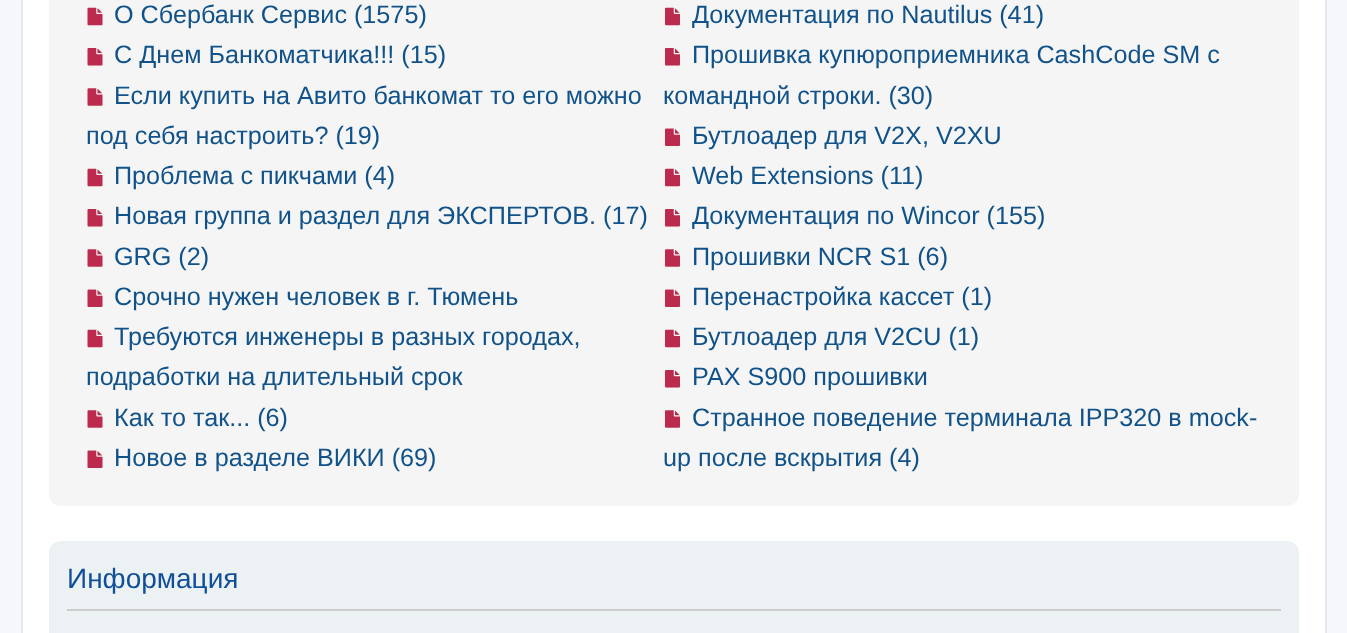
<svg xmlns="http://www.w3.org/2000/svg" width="1347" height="633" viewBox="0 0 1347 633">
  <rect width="100%" height="100%" fill="#f5f7fa"/>
  <rect x="22" y="-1" width="1304" height="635" fill="#ffffff" stroke="#e6e9ed" stroke-width="2"/>
  <rect x="49" y="-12" width="1250" height="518" rx="12" fill="#f5f5f5"/>
  <image x="87" y="7" width="16" height="19" href="img1.png"/>
  <text x="114" y="23" font-family="Liberation Sans" font-size="25.2" fill="#105289">О Сбербанк Сервис (1575)</text>
  <image x="87" y="48" width="16" height="18" href="img2.png"/>
  <text x="114" y="63" font-family="Liberation Sans" font-size="25.2" fill="#105289">С Днем Банкоматчика!!! (15)</text>
  <image x="87" y="88" width="16" height="18" href="img3.png"/>
  <text x="114" y="104" font-family="Liberation Sans" font-size="25.2" fill="#105289">Если купить на Авито банкомат то его можно</text>
  <text x="86" y="144" font-family="Liberation Sans" font-size="25.2" fill="#105289">под себя настроить? (19)</text>
  <image x="87" y="168" width="16" height="19" href="img1.png"/>
  <text x="114" y="184" font-family="Liberation Sans" font-size="25.2" fill="#105289">Проблема с пикчами (4)</text>
  <image x="87" y="209" width="16" height="18" href="img2.png"/>
  <text x="114" y="224" font-family="Liberation Sans" font-size="25.2" fill="#105289">Новая группа и раздел для ЭКСПЕРТОВ. (17)</text>
  <image x="87" y="249" width="16" height="18" href="img3.png"/>
  <text x="114" y="265" font-family="Liberation Sans" font-size="25.2" fill="#105289">GRG (2)</text>
  <image x="87" y="289" width="16" height="18" href="img4.png"/>
  <text x="114" y="305" font-family="Liberation Sans" font-size="25.2" fill="#105289">Срочно нужен человек в г. Тюмень</text>
  <image x="87" y="329" width="16" height="19" href="img1.png"/>
  <text x="114" y="345" font-family="Liberation Sans" font-size="25.2" fill="#105289">Требуются инженеры в разных городах,</text>
  <text x="86" y="385" font-family="Liberation Sans" font-size="25.2" fill="#105289">подработки на длительный срок</text>
  <image x="87" y="410" width="16" height="18" href="img3.png"/>
  <text x="114" y="426" font-family="Liberation Sans" font-size="25.2" fill="#105289">Как то так... (6)</text>
  <image x="87" y="450" width="16" height="18" href="img4.png"/>
  <text x="114" y="466" font-family="Liberation Sans" font-size="25.2" fill="#105289">Новое в разделе ВИКИ (69)</text>
  <image x="665" y="7" width="15" height="19" href="img5.png"/>
  <text x="692" y="23" font-family="Liberation Sans" font-size="25.2" fill="#105289">Документация по Nautilus (41)</text>
  <image x="665" y="48" width="15" height="18" href="img6.png"/>
  <text x="692" y="63" font-family="Liberation Sans" font-size="25.2" fill="#105289">Прошивка купюроприемника CashCode SM с</text>
  <text x="663" y="104" font-family="Liberation Sans" font-size="25.2" fill="#105289">командной строки. (30)</text>
  <image x="665" y="128" width="15" height="18" href="img7.png"/>
  <text x="692" y="144" font-family="Liberation Sans" font-size="25.2" fill="#105289">Бутлоадер для V2X, V2XU</text>
  <image x="665" y="168" width="15" height="19" href="img5.png"/>
  <text x="692" y="184" font-family="Liberation Sans" font-size="25.2" fill="#105289">Web Extensions (11)</text>
  <image x="665" y="209" width="15" height="18" href="img6.png"/>
  <text x="692" y="224" font-family="Liberation Sans" font-size="25.2" fill="#105289">Документация по Wincor (155)</text>
  <image x="665" y="249" width="15" height="18" href="img8.png"/>
  <text x="692" y="265" font-family="Liberation Sans" font-size="25.2" fill="#105289">Прошивки NCR S1 (6)</text>
  <image x="665" y="289" width="15" height="18" href="img7.png"/>
  <text x="692" y="305" font-family="Liberation Sans" font-size="25.2" fill="#105289">Перенастройка кассет (1)</text>
  <image x="665" y="329" width="15" height="19" href="img5.png"/>
  <text x="692" y="345" font-family="Liberation Sans" font-size="25.2" fill="#105289">Бутлоадер для V2CU (1)</text>
  <image x="665" y="370" width="15" height="18" href="img6.png"/>
  <text x="692" y="385" font-family="Liberation Sans" font-size="25.2" fill="#105289">PAX S900 прошивки</text>
  <image x="665" y="410" width="15" height="18" href="img8.png"/>
  <text x="692" y="426" font-family="Liberation Sans" font-size="25.2" fill="#105289">Странное поведение терминала IPP320 в mock-</text>
  <text x="663" y="466" font-family="Liberation Sans" font-size="25.2" fill="#105289">up после вскрытия (4)</text>
  <rect x="49" y="541" width="1250" height="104" rx="12" fill="#ecf1f3"/>
  <rect x="67" y="609" width="1214" height="2" fill="#cccccc"/>
  <text x="67" y="588" font-family="Liberation Sans" font-size="28" fill="#115098">Информация</text>
</svg>
